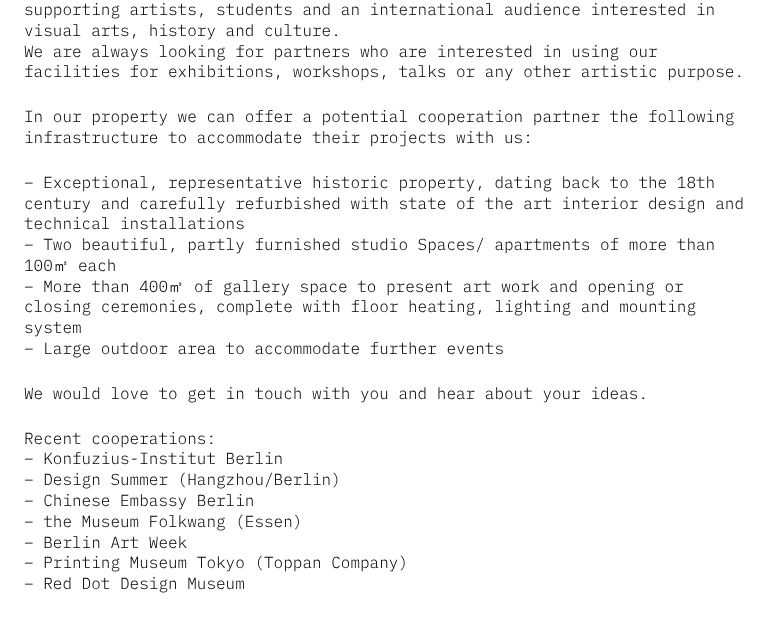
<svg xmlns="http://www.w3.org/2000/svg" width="777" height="630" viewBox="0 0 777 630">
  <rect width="100%" height="100%" fill="#ffffff"/>
  <text x="24" y="15" font-family="IBM Plex Mono" font-size="16" font-weight="300" fill="#000000">supporting artists, students and an international audience interested in</text>
  <text x="24" y="36" font-family="IBM Plex Mono" font-size="16" font-weight="300" fill="#000000">visual arts, history and culture.</text>
  <text x="24" y="57" font-family="IBM Plex Mono" font-size="16" font-weight="300" fill="#000000">We are always looking for partners who are interested in using our</text>
  <text x="24" y="77" font-family="IBM Plex Mono" font-size="16" font-weight="300" fill="#000000">facilities for exhibitions, workshops, talks or any other artistic purpose.</text>
  <text x="24" y="122" font-family="IBM Plex Mono" font-size="16" font-weight="300" fill="#000000">In our property we can offer a potential cooperation partner the following</text>
  <text x="24" y="143" font-family="IBM Plex Mono" font-size="16" font-weight="300" fill="#000000">infrastructure to accommodate their projects with us:</text>
  <text x="24" y="188" font-family="IBM Plex Mono" font-size="16" font-weight="300" fill="#000000">– Exceptional, representative historic property, dating back to the 18th</text>
  <text x="24" y="209" font-family="IBM Plex Mono" font-size="16" font-weight="300" fill="#000000">century and carefully refurbished with state of the art interior design and</text>
  <text x="24" y="229" font-family="IBM Plex Mono" font-size="16" font-weight="300" fill="#000000">technical installations</text>
  <text x="24" y="250" font-family="IBM Plex Mono" font-size="16" font-weight="300" fill="#000000">– Two beautiful, partly furnished studio Spaces/ apartments of more than</text>
  <text x="24" y="271" font-family="IBM Plex Mono" font-size="16" font-weight="300" fill="#000000">100</text>
  <text x="53" y="271" font-family="WenQuanYi Zen Hei" font-size="16" font-weight="500" fill="#000000">㎡</text>
  <text x="78" y="271" font-family="IBM Plex Mono" font-size="16" font-weight="300" fill="#000000">each</text>
  <text x="24" y="292" font-family="IBM Plex Mono" font-size="16" font-weight="300" fill="#000000">– More than 400</text>
  <text x="168" y="292" font-family="WenQuanYi Zen Hei" font-size="16" font-weight="500" fill="#000000">㎡</text>
  <text x="194" y="292" font-family="IBM Plex Mono" font-size="16" font-weight="300" fill="#000000">of gallery space to present art work and opening or</text>
  <text x="24" y="312" font-family="IBM Plex Mono" font-size="16" font-weight="300" fill="#000000">closing ceremonies, complete with floor heating, lighting and mounting</text>
  <text x="24" y="333" font-family="IBM Plex Mono" font-size="16" font-weight="300" fill="#000000">system</text>
  <text x="24" y="354" font-family="IBM Plex Mono" font-size="16" font-weight="300" fill="#000000">– Large outdoor area to accommodate further events</text>
  <text x="24" y="399" font-family="IBM Plex Mono" font-size="16" font-weight="300" fill="#000000">We would love to get in touch with you and hear about your ideas.</text>
  <text x="24" y="444" font-family="IBM Plex Mono" font-size="16" font-weight="300" fill="#000000">Recent cooperations:</text>
  <text x="24" y="464" font-family="IBM Plex Mono" font-size="16" font-weight="300" fill="#000000">– Konfuzius-Institut Berlin</text>
  <text x="24" y="485" font-family="IBM Plex Mono" font-size="16" font-weight="300" fill="#000000">– Design Summer (Hangzhou/Berlin)</text>
  <text x="24" y="506" font-family="IBM Plex Mono" font-size="16" font-weight="300" fill="#000000">– Chinese Embassy Berlin</text>
  <text x="24" y="527" font-family="IBM Plex Mono" font-size="16" font-weight="300" fill="#000000">– the Museum Folkwang (Essen)</text>
  <text x="24" y="548" font-family="IBM Plex Mono" font-size="16" font-weight="300" fill="#000000">– Berlin Art Week</text>
  <text x="24" y="568" font-family="IBM Plex Mono" font-size="16" font-weight="300" fill="#000000">– Printing Museum Tokyo (Toppan Company)</text>
  <text x="24" y="589" font-family="IBM Plex Mono" font-size="16" font-weight="300" fill="#000000">– Red Dot Design Museum</text>
</svg>
